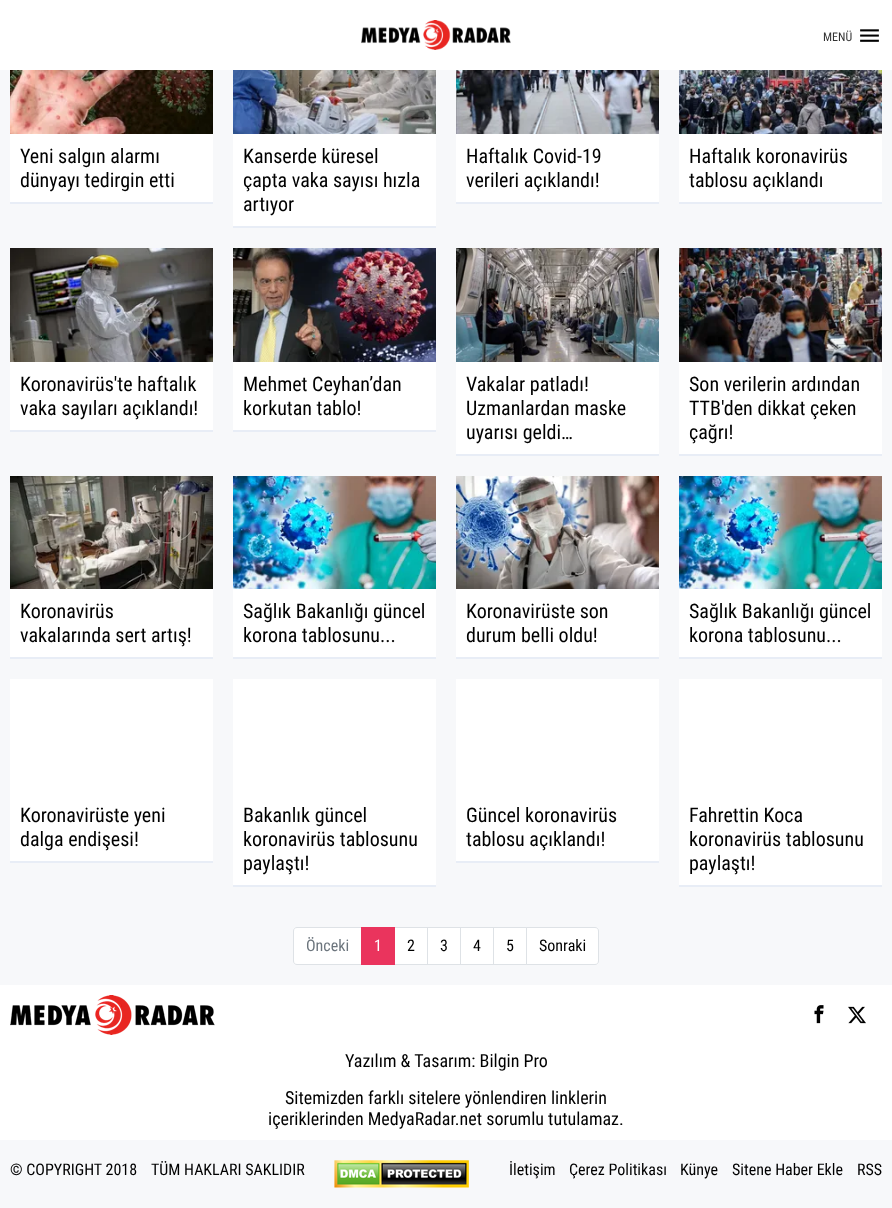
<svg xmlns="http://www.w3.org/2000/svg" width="892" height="1208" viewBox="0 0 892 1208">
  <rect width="100%" height="100%" fill="#f7f8fa"/>
  <rect x="0" y="0" width="892" height="70" fill="#ffffff"/>
  <image x="361" y="20" width="150" height="30" href="img1.png"/>
  <text x="823" y="41" font-family="Roboto Condensed" font-size="12" fill="#333333">MENÜ</text>
  <image x="860" y="29" width="19" height="13" href="img2.png"/>
  <rect x="10" y="134" width="203" height="68" fill="#ffffff"/>
  <image x="10" y="70" width="203" height="64" href="img3.png"/>
  <rect x="10" y="202" width="203" height="2" fill="#e8edf6"/>
  <text x="20" y="163" font-family="Roboto Condensed" font-size="20" fill="#000000">Yeni salgın alarmı</text>
  <text x="20" y="187" font-family="Roboto Condensed" font-size="20" fill="#000000">dünyayı tedirgin etti</text>
  <rect x="233" y="134" width="203" height="92" fill="#ffffff"/>
  <image x="233" y="70" width="203" height="64" href="img4.png"/>
  <rect x="233" y="226" width="203" height="2" fill="#e8edf6"/>
  <text x="243" y="163" font-family="Roboto Condensed" font-size="20" fill="#000000">Kanserde küresel</text>
  <text x="243" y="187" font-family="Roboto Condensed" font-size="20" fill="#000000">çapta vaka sayısı hızla</text>
  <text x="243" y="211" font-family="Roboto Condensed" font-size="20" fill="#000000">artıyor</text>
  <rect x="456" y="134" width="203" height="68" fill="#ffffff"/>
  <image x="456" y="70" width="203" height="64" href="img5.png"/>
  <rect x="456" y="202" width="203" height="2" fill="#e8edf6"/>
  <text x="466" y="163" font-family="Roboto Condensed" font-size="20" fill="#000000">Haftalık Covid-19</text>
  <text x="466" y="187" font-family="Roboto Condensed" font-size="20" fill="#000000">verileri açıklandı!</text>
  <rect x="679" y="134" width="203" height="68" fill="#ffffff"/>
  <image x="679" y="70" width="203" height="64" href="img6.png"/>
  <rect x="679" y="202" width="203" height="2" fill="#e8edf6"/>
  <text x="689" y="163" font-family="Roboto Condensed" font-size="20" fill="#000000">Haftalık koronavirüs</text>
  <text x="689" y="187" font-family="Roboto Condensed" font-size="20" fill="#000000">tablosu açıklandı</text>
  <rect x="10" y="362" width="203" height="68" fill="#ffffff"/>
  <image x="10" y="248" width="203" height="114" href="img7.png"/>
  <rect x="10" y="430" width="203" height="2" fill="#e8edf6"/>
  <text x="20" y="391" font-family="Roboto Condensed" font-size="20" fill="#000000">Koronavirüs'te haftalık</text>
  <text x="20" y="415" font-family="Roboto Condensed" font-size="20" fill="#000000">vaka sayıları açıklandı!</text>
  <rect x="233" y="362" width="203" height="68" fill="#ffffff"/>
  <image x="233" y="248" width="203" height="114" href="img8.png"/>
  <rect x="233" y="430" width="203" height="2" fill="#e8edf6"/>
  <text x="243" y="391" font-family="Roboto Condensed" font-size="20" fill="#000000">Mehmet Ceyhan’dan</text>
  <text x="243" y="415" font-family="Roboto Condensed" font-size="20" fill="#000000">korkutan tablo!</text>
  <rect x="456" y="362" width="203" height="92" fill="#ffffff"/>
  <image x="456" y="248" width="203" height="114" href="img9.png"/>
  <rect x="456" y="454" width="203" height="2" fill="#e8edf6"/>
  <text x="466" y="391" font-family="Roboto Condensed" font-size="20" fill="#000000">Vakalar patladı!</text>
  <text x="466" y="415" font-family="Roboto Condensed" font-size="20" fill="#000000">Uzmanlardan maske</text>
  <text x="466" y="439" font-family="Roboto Condensed" font-size="20" fill="#000000">uyarısı geldi…</text>
  <rect x="679" y="362" width="203" height="92" fill="#ffffff"/>
  <image x="679" y="248" width="203" height="114" href="img10.png"/>
  <rect x="679" y="454" width="203" height="2" fill="#e8edf6"/>
  <text x="689" y="391" font-family="Roboto Condensed" font-size="20" fill="#000000">Son verilerin ardından</text>
  <text x="689" y="415" font-family="Roboto Condensed" font-size="20" fill="#000000">TTB'den dikkat çeken</text>
  <text x="689" y="439" font-family="Roboto Condensed" font-size="20" fill="#000000">çağrı!</text>
  <rect x="10" y="589" width="203" height="68" fill="#ffffff"/>
  <image x="10" y="476" width="203" height="113" href="img11.png"/>
  <rect x="10" y="657" width="203" height="2" fill="#e8edf6"/>
  <text x="20" y="618" font-family="Roboto Condensed" font-size="20" fill="#000000">Koronavirüs</text>
  <text x="20" y="642" font-family="Roboto Condensed" font-size="20" fill="#000000">vakalarında sert artış!</text>
  <rect x="233" y="589" width="203" height="68" fill="#ffffff"/>
  <image x="233" y="476" width="203" height="113" href="img12.png"/>
  <rect x="233" y="657" width="203" height="2" fill="#e8edf6"/>
  <text x="243" y="618" font-family="Roboto Condensed" font-size="20" fill="#000000">Sağlık Bakanlığı güncel</text>
  <text x="243" y="642" font-family="Roboto Condensed" font-size="20" fill="#000000">korona tablosunu...</text>
  <rect x="456" y="589" width="203" height="68" fill="#ffffff"/>
  <image x="456" y="476" width="203" height="113" href="img13.png"/>
  <rect x="456" y="657" width="203" height="2" fill="#e8edf6"/>
  <text x="466" y="618" font-family="Roboto Condensed" font-size="20" fill="#000000">Koronavirüste son</text>
  <text x="466" y="642" font-family="Roboto Condensed" font-size="20" fill="#000000">durum belli oldu!</text>
  <rect x="679" y="589" width="203" height="68" fill="#ffffff"/>
  <image x="679" y="476" width="203" height="113" href="img12.png"/>
  <rect x="679" y="657" width="203" height="2" fill="#e8edf6"/>
  <text x="689" y="618" font-family="Roboto Condensed" font-size="20" fill="#000000">Sağlık Bakanlığı güncel</text>
  <text x="689" y="642" font-family="Roboto Condensed" font-size="20" fill="#000000">korona tablosunu...</text>
  <rect x="10" y="679" width="203" height="182" fill="#ffffff"/>
  <rect x="10" y="861" width="203" height="2" fill="#e8edf6"/>
  <text x="20" y="822" font-family="Roboto Condensed" font-size="20" fill="#000000">Koronavirüste yeni</text>
  <text x="20" y="846" font-family="Roboto Condensed" font-size="20" fill="#000000">dalga endişesi!</text>
  <rect x="233" y="679" width="203" height="206" fill="#ffffff"/>
  <rect x="233" y="885" width="203" height="2" fill="#e8edf6"/>
  <text x="243" y="822" font-family="Roboto Condensed" font-size="20" fill="#000000">Bakanlık güncel</text>
  <text x="243" y="846" font-family="Roboto Condensed" font-size="20" fill="#000000">koronavirüs tablosunu</text>
  <text x="243" y="870" font-family="Roboto Condensed" font-size="20" fill="#000000">paylaştı!</text>
  <rect x="456" y="679" width="203" height="182" fill="#ffffff"/>
  <rect x="456" y="861" width="203" height="2" fill="#e8edf6"/>
  <text x="466" y="822" font-family="Roboto Condensed" font-size="20" fill="#000000">Güncel koronavirüs</text>
  <text x="466" y="846" font-family="Roboto Condensed" font-size="20" fill="#000000">tablosu açıklandı!</text>
  <rect x="679" y="679" width="203" height="206" fill="#ffffff"/>
  <rect x="679" y="885" width="203" height="2" fill="#e8edf6"/>
  <text x="689" y="822" font-family="Roboto Condensed" font-size="20" fill="#000000">Fahrettin Koca</text>
  <text x="689" y="846" font-family="Roboto Condensed" font-size="20" fill="#000000">koronavirüs tablosunu</text>
  <text x="689" y="870" font-family="Roboto Condensed" font-size="20" fill="#000000">paylaştı!</text>
  <path d="M297 927.5H361.5V964.5H297C295 964.5 293.5 963 293.5 961V931C293.5 929 295 927.5 297 927.5Z" fill="#ffffff" stroke="#dee2e6"/>
  <text x="306" y="951" font-family="Roboto Condensed" font-size="16" fill="#6c757d">Önceki</text>
  <rect x="394.5" y="927.5" width="33" height="37" fill="#ffffff" stroke="#dee2e6"/>
  <rect x="361" y="927" width="34" height="38" fill="#ea345d"/>
  <text x="374" y="951" font-family="Roboto Condensed" font-size="16" fill="#ffffff">1</text>
  <text x="407" y="951" font-family="Roboto Condensed" font-size="16" fill="#000000">2</text>
  <rect x="427.5" y="927.5" width="33" height="37" fill="#ffffff" stroke="#dee2e6"/>
  <text x="440" y="951" font-family="Roboto Condensed" font-size="16" fill="#000000">3</text>
  <rect x="460.5" y="927.5" width="33" height="37" fill="#ffffff" stroke="#dee2e6"/>
  <text x="473" y="951" font-family="Roboto Condensed" font-size="16" fill="#000000">4</text>
  <rect x="493.5" y="927.5" width="33" height="37" fill="#ffffff" stroke="#dee2e6"/>
  <text x="506" y="951" font-family="Roboto Condensed" font-size="16" fill="#000000">5</text>
  <path d="M526.5 927.5H595C597 927.5 598.5 929 598.5 931V961C598.5 963 597 964.5 595 964.5H526.5Z" fill="#ffffff" stroke="#dee2e6"/>
  <text x="539" y="951" font-family="Roboto Condensed" font-size="16" fill="#000000">Sonraki</text>
  <rect x="0" y="985" width="892" height="155" fill="#ffffff"/>
  <image x="10" y="995" width="205" height="40" href="img14.png"/>
  <image x="814" y="1005" width="10" height="19" href="img15.png"/>
  <image x="848" y="1006" width="18" height="18" href="img16.png"/>
  <text x="345" y="1067" font-family="Roboto Condensed" font-size="18" fill="#000000">Yazılım &amp; Tasarım: Bilgin Pro</text>
  <text x="285" y="1104" font-family="Roboto Condensed" font-size="18" fill="#000000">Sitemizden farklı sitelere yönlendiren linklerin</text>
  <text x="268" y="1125" font-family="Roboto Condensed" font-size="18" fill="#000000">içeriklerinden MedyaRadar.net sorumlu tutulamaz.</text>
  <text x="10" y="1175" font-family="Roboto Condensed" font-size="16" fill="#000000">© COPYRIGHT 2018</text>
  <text x="151" y="1175" font-family="Roboto Condensed" font-size="16" fill="#000000">TÜM HAKLARI SAKLIDIR</text>
  <image x="334" y="1160" width="135" height="28" href="img17.png"/>
  <text x="509" y="1175" font-family="Roboto Condensed" font-size="16" fill="#000000">İletişim</text>
  <text x="569" y="1175" font-family="Roboto Condensed" font-size="16" fill="#000000">Çerez Politikası</text>
  <text x="680" y="1175" font-family="Roboto Condensed" font-size="16" fill="#000000">Künye</text>
  <text x="732" y="1175" font-family="Roboto Condensed" font-size="16" fill="#000000">Sitene Haber Ekle</text>
  <text x="857" y="1175" font-family="Roboto Condensed" font-size="16" fill="#000000">RSS</text>
</svg>
